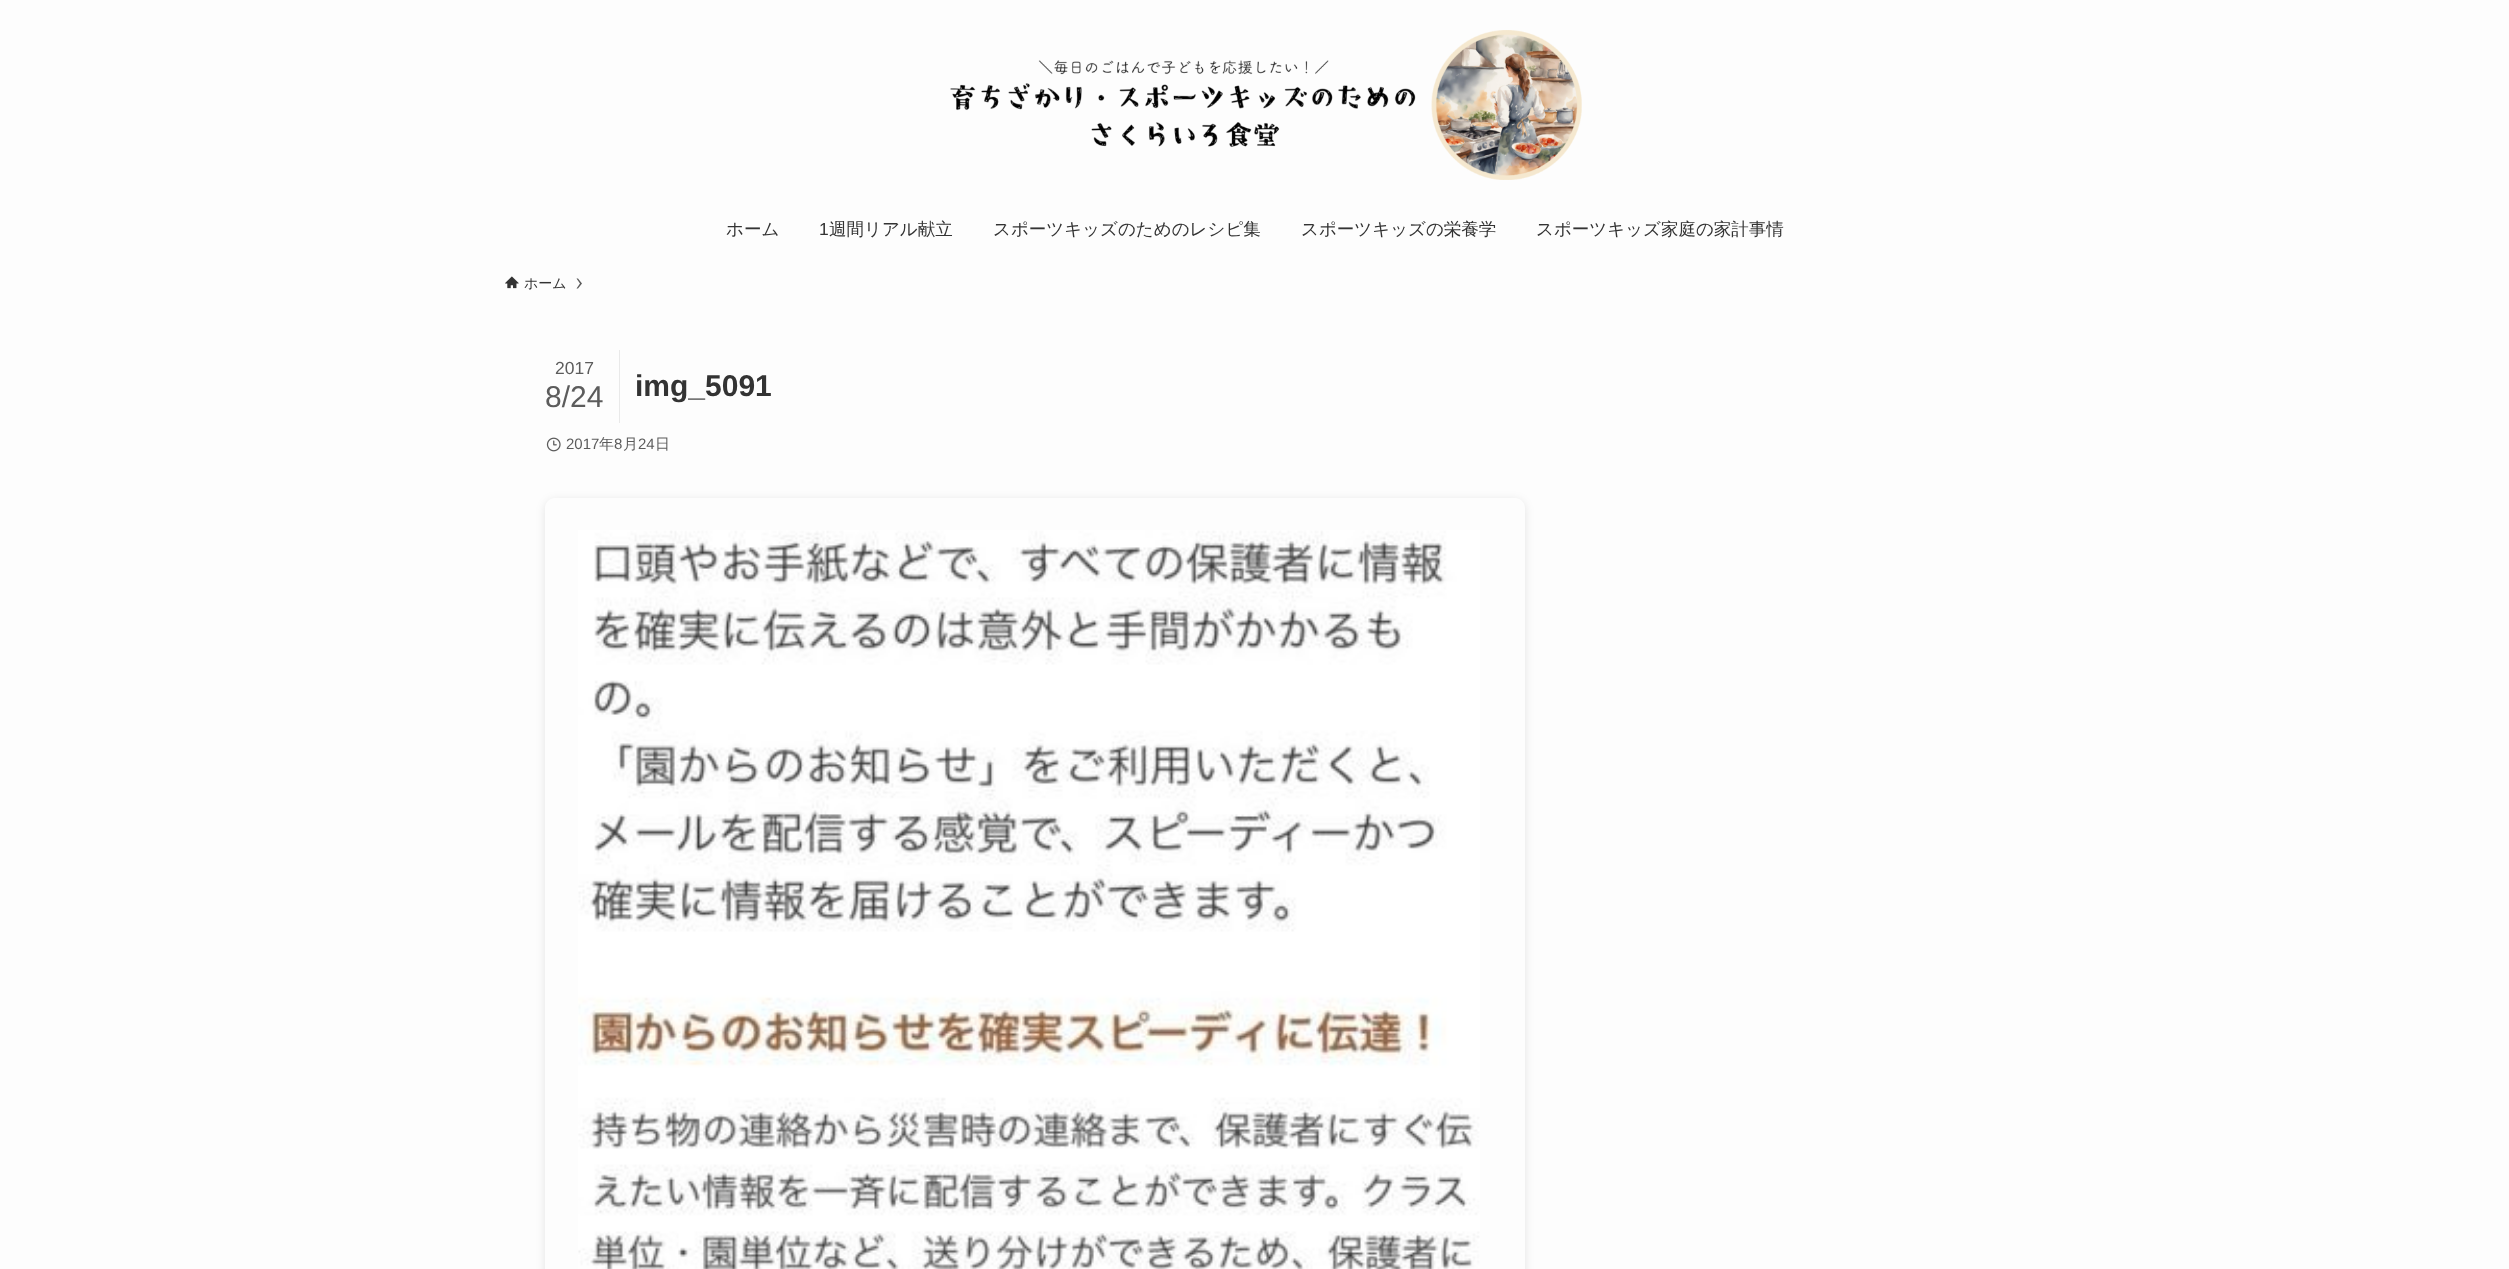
<svg xmlns="http://www.w3.org/2000/svg" width="2509" height="1269" viewBox="0 0 2509 1269">
  <defs>
    <clipPath id="clip1"><path d="M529 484H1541V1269H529ZM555 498H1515C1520.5 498 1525 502.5 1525 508V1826C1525 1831.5 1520.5 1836 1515 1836H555C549.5 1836 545 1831.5 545 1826V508C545 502.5 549.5 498 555 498Z" clip-rule="evenodd"/></clipPath>
    <filter id="blur1" x="-50%" y="-200%" width="200%" height="500%"><feGaussianBlur stdDeviation="5"/></filter>
  </defs>
  <rect width="100%" height="100%" fill="#fdfdfd"/>
  <image x="950" y="30" width="632" height="150" href="img1.png"/>
  <text x="726" y="235" font-family="WenQuanYi Zen Hei" font-size="17.5" font-weight="500" fill="#333333">ホーム</text>
  <text x="819" y="235" font-family="Liberation Sans" font-size="17.5" fill="#333333">1</text>
  <text x="829" y="235" font-family="WenQuanYi Zen Hei" font-size="17.5" font-weight="500" fill="#333333">週間リアル献立</text>
  <text x="993" y="235" font-family="WenQuanYi Zen Hei" font-size="17.5" font-weight="500" fill="#333333">スポーツキッズのためのレシピ集</text>
  <text x="1301" y="235" font-family="WenQuanYi Zen Hei" font-size="17.5" font-weight="500" fill="#333333">スポーツキッズの栄養学</text>
  <text x="1536" y="235" font-family="WenQuanYi Zen Hei" font-size="17.5" font-weight="500" fill="#333333">スポーツキッズ家庭の家計事情</text>
  <image x="505" y="276" width="14" height="13" href="img2.png"/>
  <text x="524" y="288" font-family="WenQuanYi Zen Hei" font-size="14" font-weight="500" fill="#333333">ホーム</text>
  <path d="M578 278.5H576.5L580 283.5L576.5 288.5H578L582 283.5Z" fill="#5b5b5b"/>
  <rect x="619" y="350" width="1" height="73" fill="#e9e9e9"/>
  <text x="555" y="374" font-family="Liberation Sans" font-size="17.5" fill="#5c5c5c">2017</text>
  <text x="545" y="407" font-family="Liberation Sans" font-size="30" fill="#5c5c5c">8/24</text>
  <text x="635" y="396" font-family="Liberation Sans" font-size="30" font-weight="bold" fill="#333333">img_5091</text>
  <image x="546" y="437" width="15" height="15" href="img3.png"/>
  <text x="566" y="449" font-family="Liberation Sans" font-size="15" fill="#5c5c5c">2017</text>
  <text x="599" y="449" font-family="WenQuanYi Zen Hei" font-size="15" font-weight="500" fill="#5c5c5c">年</text>
  <text x="614" y="449" font-family="Liberation Sans" font-size="15" fill="#5c5c5c">8</text>
  <text x="623" y="449" font-family="WenQuanYi Zen Hei" font-size="15" font-weight="500" fill="#5c5c5c">月</text>
  <text x="638" y="449" font-family="Liberation Sans" font-size="15" fill="#5c5c5c">24</text>
  <text x="655" y="449" font-family="WenQuanYi Zen Hei" font-size="15" font-weight="500" fill="#5c5c5c">日</text>
  <g clip-path="url(#clip1)">
    <rect x="545" y="500" width="980" height="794" rx="10" fill="#000000" fill-opacity="0.1" filter="url(#blur1)"/>
  </g>
  <image x="578" y="530" width="902" height="739" href="img4.png"/>
</svg>
